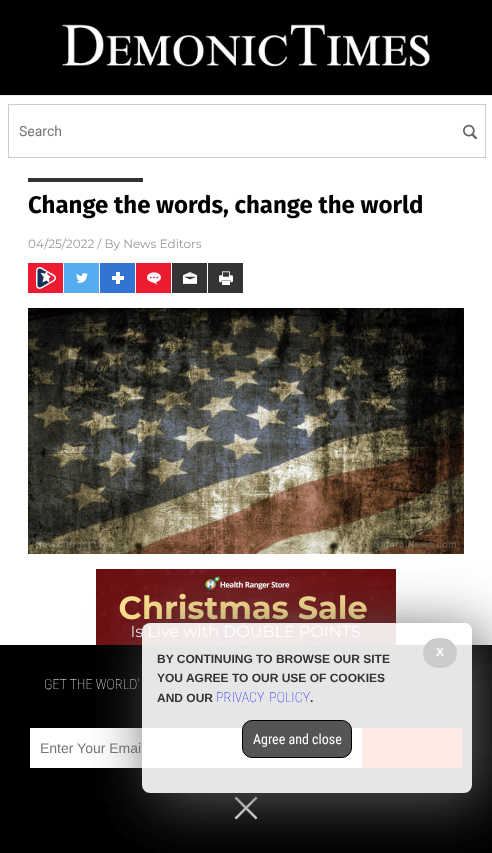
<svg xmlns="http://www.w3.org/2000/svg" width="492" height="853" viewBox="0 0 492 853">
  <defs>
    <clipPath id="clip1"><path d="M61 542H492V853H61ZM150 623H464C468.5 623 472 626.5 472 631V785C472 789.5 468.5 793 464 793H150C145.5 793 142 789.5 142 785V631C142 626.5 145.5 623 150 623Z" clip-rule="evenodd"/></clipPath>
    <filter id="blur1" x="-50%" y="-200%" width="200%" height="500%"><feGaussianBlur stdDeviation="30"/></filter>
  </defs>
  <rect width="100%" height="100%" fill="#000000"/>
  <image x="62" y="24" width="368" height="43" href="img1.png"/>
  <rect x="0" y="96" width="492" height="549" fill="#ffffff"/>
  <rect x="0" y="95" width="492" height="1" fill="#ececec"/>
  <rect x="8.5" y="104.5" width="477" height="53" fill="none" stroke="#cccccc"/>
  <text x="19" y="136" font-family="Roboto" font-size="14" fill="#757575">Search</text>
  <image x="463" y="124" width="14" height="16" href="img2.png"/>
  <rect x="28" y="178" width="115" height="4" fill="#333333"/>
  <text x="28" y="213" font-family="Fira Sans" font-size="24" font-weight="bold" fill="#000000">Change the words, change the world</text>
  <text x="28" y="248" font-family="Montserrat" font-size="12" fill="#999999">04/25/2022 / By News Editors</text>
  <rect x="28" y="263" width="35" height="30" fill="#ed1b2f"/>
  <image x="36" y="267" width="20" height="22" href="img3.png"/>
  <rect x="64" y="263" width="35" height="30" fill="#55acef"/>
  <image x="76" y="273" width="12" height="10" href="img4.png"/>
  <rect x="100" y="263" width="35" height="30" fill="#3274d1"/>
  <image x="112" y="272" width="12" height="12" href="img5.png"/>
  <rect x="136" y="263" width="35" height="30" fill="#ed1b2f"/>
  <image x="147" y="272" width="14" height="13" href="img6.png"/>
  <rect x="172" y="263" width="35" height="30" fill="#343434"/>
  <image x="183" y="272" width="14" height="12" href="img7.png"/>
  <rect x="208" y="263" width="35" height="30" fill="#343434"/>
  <image x="219" y="271" width="14" height="14" href="img8.png"/>
  <image x="28" y="308" width="436" height="246" href="img9.png"/>
  <image x="96" y="569" width="300" height="76" href="img10.png"/>
  <text x="44" y="689" font-family="Roboto Condensed" font-size="14" font-weight="100" fill="#ffffff">GET THE WORLD'</text>
  <rect x="30" y="728" width="332" height="40" fill="#ffffff"/>
  <text x="40" y="753" font-family="Liberation Sans" font-size="14" fill="#757575">Enter Your Emai</text>
  <rect x="362" y="728" width="100" height="40" fill="#ff3300"/>
  <image x="234" y="796" width="24" height="24" href="img11.png"/>
  <g clip-path="url(#clip1)">
    <rect x="152" y="633" width="330" height="170" rx="8" fill="#555555" filter="url(#blur1)"/>
  </g>
  <rect x="142" y="623" width="330" height="170" rx="8" fill="#ffffff" fill-opacity="0.9"/>
  <rect x="423" y="638" width="34" height="30" rx="15" fill="#cccccc"/>
  <text x="436" y="656" font-family="Liberation Sans" font-size="12" font-weight="bold" fill="#ffffff">X</text>
  <text x="157" y="663" font-family="Liberation Sans" font-size="12" font-weight="bold" fill="#333333">BY CONTINUING TO BROWSE OUR SITE</text>
  <text x="157" y="682" font-family="Liberation Sans" font-size="12" font-weight="bold" fill="#333333">YOU AGREE TO OUR USE OF COOKIES</text>
  <text x="157" y="702" font-family="Liberation Sans" font-size="12" font-weight="bold" fill="#333333">AND OUR</text>
  <text x="216" y="702" word-spacing="2" font-family="Roboto Condensed" font-size="14" font-weight="100" fill="#0000ff">PRIVACY POLICY</text>
  <text x="310" y="702" font-family="Liberation Sans" font-size="12" font-weight="bold" fill="#333333">.</text>
  <rect x="242.5" y="720.5" width="109" height="37" rx="9.5" fill="#555555" stroke="#000000"/>
  <text x="253" y="744" font-family="Roboto Condensed" font-size="14" fill="#ffffff">Agree and close</text>
</svg>
